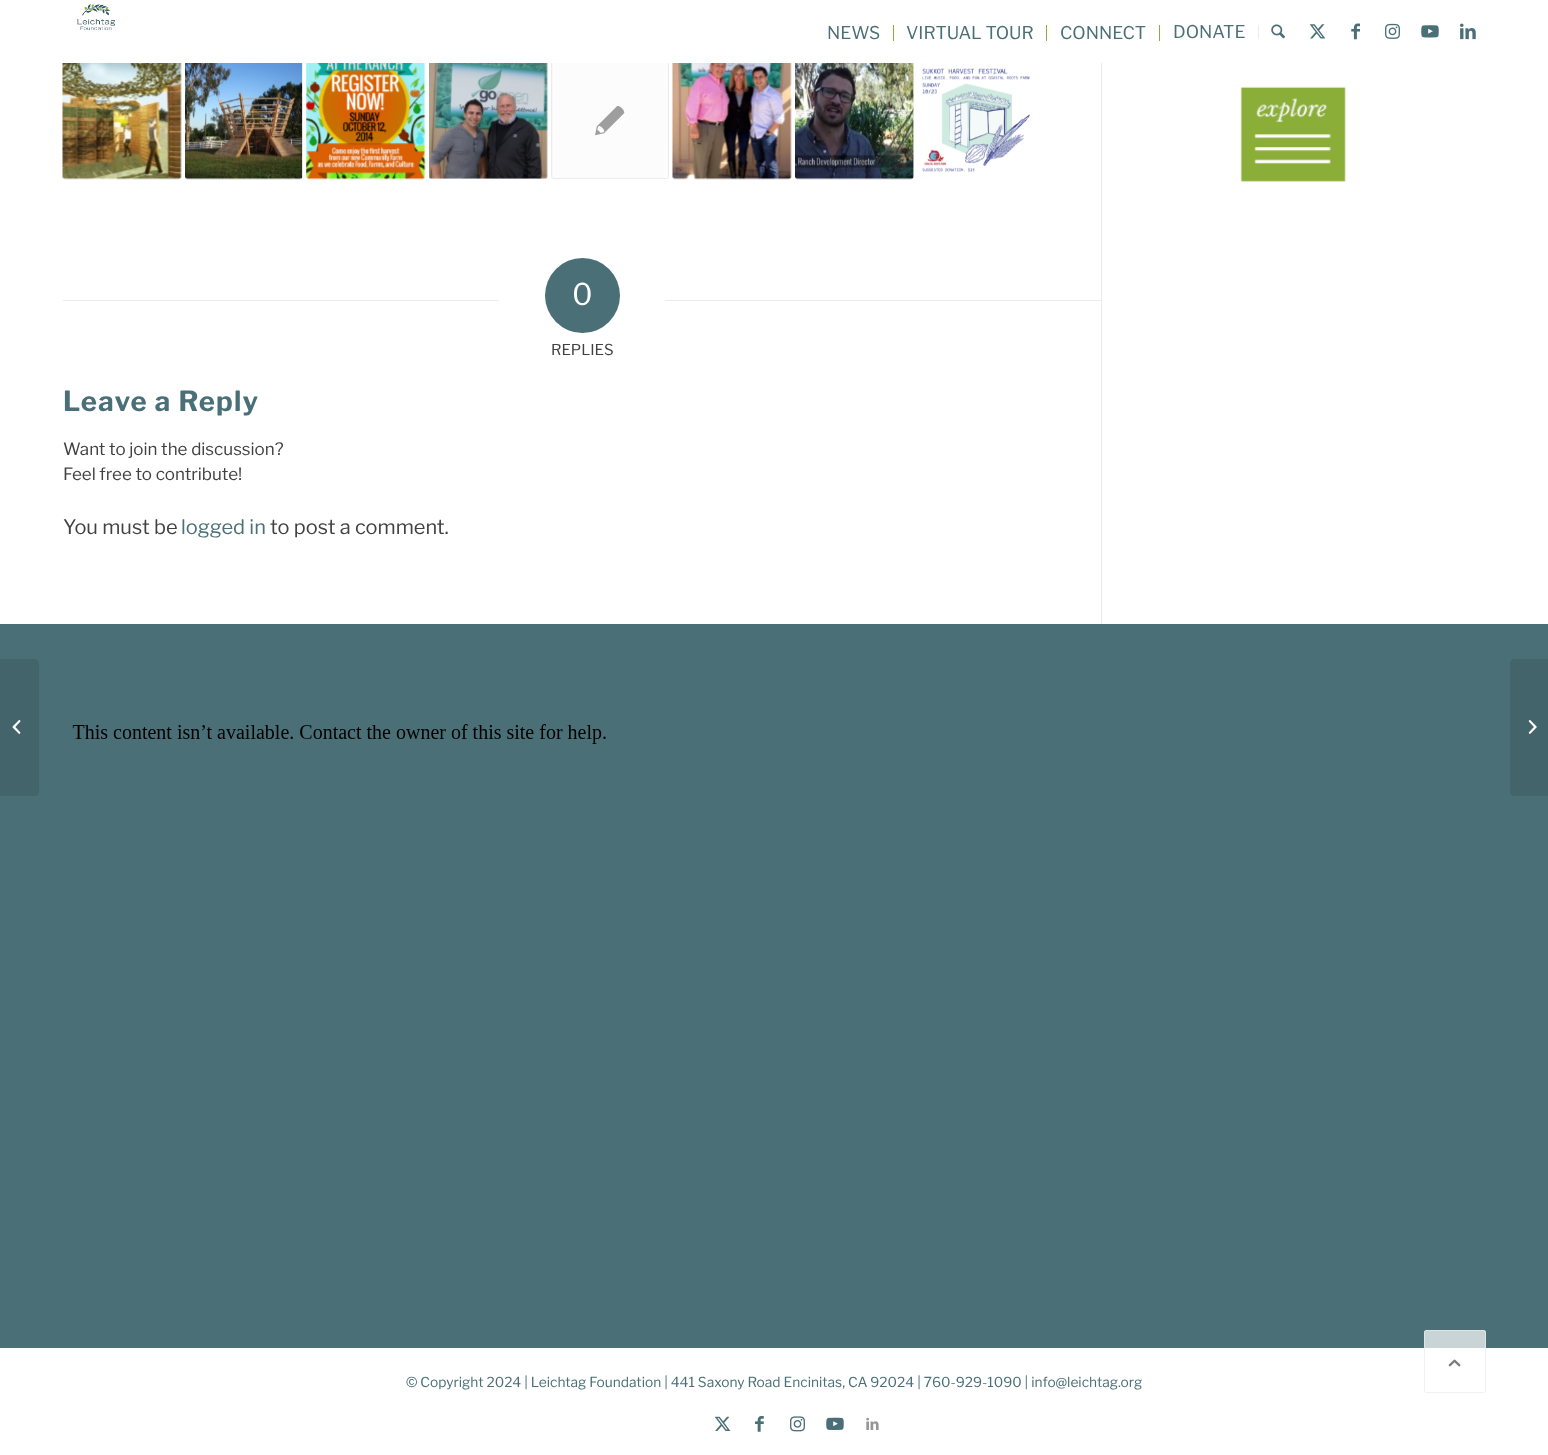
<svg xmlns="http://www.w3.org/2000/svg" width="1548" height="1455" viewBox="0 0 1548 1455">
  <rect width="100%" height="100%" fill="#ffffff"/>
  <image x="77" y="4" width="38" height="26" href="img1.png"/>
  <rect x="551.5" y="60.5" width="117" height="118" rx="2" fill="#f8f8f8" stroke="#ebebeb"/>
  <rect x="551" y="60" width="118" height="3" fill="#ffffff"/>
  <rect x="893" y="25" width="1" height="16" fill="#8bae39"/>
  <text x="827" y="39" font-family="Libre Franklin" font-size="17.5" font-weight="100" fill="#4a6f77">NEWS</text>
  <rect x="1046" y="25" width="1" height="16" fill="#8bae39"/>
  <text x="906" y="39" font-family="Libre Franklin" font-size="17.5" font-weight="100" fill="#4a6f77">VIRTUAL TOUR</text>
  <rect x="1159" y="25" width="1" height="16" fill="#8bae39"/>
  <text x="1060" y="39" font-family="Libre Franklin" font-size="17.5" font-weight="100" fill="#4a6f77">CONNECT</text>
  <rect x="1258" y="25" width="1" height="14" fill="#ebebeb"/>
  <text x="1173" y="38" font-family="Libre Franklin" font-size="17.5" font-weight="100" fill="#4a6f77">DONATE</text>
  <image x="1271" y="24" width="14" height="15" href="img2.png"/>
  <image x="1309" y="24" width="17" height="15" href="img3.png"/>
  <image x="1351" y="23" width="9" height="17" href="img4.png"/>
  <image x="1385" y="23" width="15" height="16" href="img5.png"/>
  <image x="1421" y="25" width="18" height="13" href="img6.png"/>
  <image x="1460" y="23" width="16" height="17" href="img7.png"/>
  <rect x="0" y="624" width="1548" height="724" fill="#4a6f77"/>
  <path d="M0 659H34C37 659 39 661 39 664V791C39 794 37 796 34 796H0Z" fill="#43646b"/>
  <image x="12" y="720" width="9" height="14" href="img8.png"/>
  <rect x="1101" y="63" width="1" height="561" fill="#ebebeb"/>
  <image x="62" y="63" width="120" height="117" href="img9.png"/>
  <image x="185" y="63" width="118" height="117" href="img10.png"/>
  <image x="306" y="63" width="120" height="117" href="img11.png"/>
  <image x="429" y="63" width="119" height="116" href="img12.png"/>
  <rect x="553" y="63" width="115" height="115" fill="#ffffff" fill-opacity="0.5"/>
  <image x="595" y="106" width="30" height="30" href="img13.png"/>
  <image x="672" y="63" width="120" height="117" href="img14.png"/>
  <image x="795" y="63" width="119" height="117" href="img15.png"/>
  <image x="922" y="68" width="108" height="104" href="img16.png"/>
  <rect x="63" y="300" width="436" height="1" fill="#ebebeb"/>
  <circle cx="582.5" cy="295.5" r="37.5" fill="#4a6f77"/>
  <text x="572" y="305" font-family="Libre Franklin" font-size="30" font-weight="100" fill="#ffffff">0</text>
  <rect x="665" y="300" width="436" height="1" fill="#ebebeb"/>
  <text x="551" y="355" font-family="Libre Franklin" font-size="15" font-weight="100" fill="#414042">REPLIES</text>
  <text x="63" y="411" font-family="Libre Franklin" font-size="27.5" font-weight="bold" letter-spacing="1.25" fill="#4a6f77">Leave a Reply</text>
  <text x="63" y="455" font-family="Libre Franklin" font-size="17" font-weight="100" fill="#414042">Want to join the discussion?</text>
  <text x="63" y="480" font-family="Libre Franklin" font-size="17" font-weight="100" fill="#414042">Feel free to contribute!</text>
  <text x="63" y="534" font-family="Libre Franklin" font-size="20" font-weight="100" fill="#414042">You must be</text>
  <text x="181" y="534" font-family="Libre Franklin" font-size="20" font-weight="100" fill="#4a6f77">logged in</text>
  <text x="270" y="534" font-family="Libre Franklin" font-size="20" font-weight="100" fill="#414042">to post a comment.</text>
  <image x="72" y="724" width="534" height="20" href="img17.png"/>
  <text x="406" y="1387" font-family="Libre Franklin" font-size="13.75" font-weight="100" fill="#4a6f77">© Copyright 2024 | Leichtag Foundation | 441 Saxony Road Encinitas, CA 92024 | 760-929-1090 | info@leichtag.org</text>
  <image x="714" y="1416" width="17" height="15" href="img18.png"/>
  <image x="755" y="1416" width="9" height="16" href="img19.png"/>
  <image x="790" y="1416" width="15" height="16" href="img20.png"/>
  <image x="826" y="1417" width="18" height="13" href="img21.png"/>
  <image x="866" y="1417" width="13" height="13" href="img22.png"/>
  <path d="M1515 659H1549V796H1515C1512 796 1510 794 1510 791V664C1510 661 1512 659 1515 659Z" fill="#43646b"/>
  <image x="1528" y="720" width="9" height="14" href="img23.png"/>
  <image x="1240" y="86" width="106" height="96" href="img24.png"/>
  <rect x="1424" y="1330" width="62" height="63" rx="2.5" fill="#ffffff" fill-opacity="0.7"/>
  <rect x="1424.5" y="1330.5" width="61" height="62" rx="2" fill="none" stroke="#ebebeb" stroke-opacity="0.7"/>
  <image x="1448" y="1359" width="13" height="8" href="img25.png"/>
</svg>
